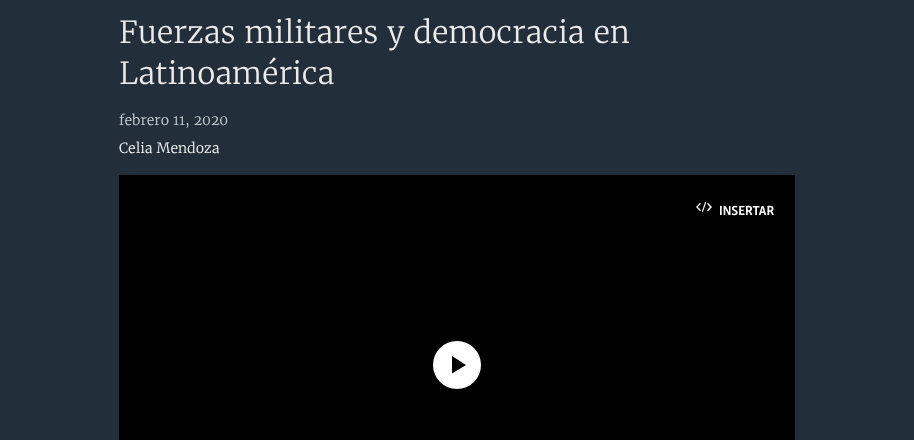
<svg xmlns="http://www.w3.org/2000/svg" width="914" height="440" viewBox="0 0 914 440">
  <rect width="100%" height="100%" fill="#222f3a"/>
  <text x="119" y="43" font-family="Merriweather" font-size="30.4" font-weight="300" fill="#ebebeb">Fuerzas militares y democracia en</text>
  <text x="119" y="84" font-family="Merriweather" font-size="30.4" font-weight="300" fill="#ebebeb">Latinoamérica</text>
  <text x="119" y="125" font-family="Merriweather" font-size="14" font-weight="300" fill="#cbd1d6">febrero 11, 2020</text>
  <text x="119" y="153" font-family="Merriweather" font-size="14" font-weight="300" fill="#f6f7f8">Celia Mendoza</text>
  <rect x="119" y="175" width="676" height="265" fill="#000000"/>
  <image x="696" y="202" width="16" height="10" href="img1.png"/>
  <text x="719" y="215" font-family="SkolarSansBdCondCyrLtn" font-size="13.5" font-weight="bold" fill="#ffffff">INSERTAR</text>
  <circle cx="457" cy="365" r="24" fill="#ffffff"/>
  <path d="M452 373.5L466 365L452 356Z" fill="#000000"/>
</svg>
